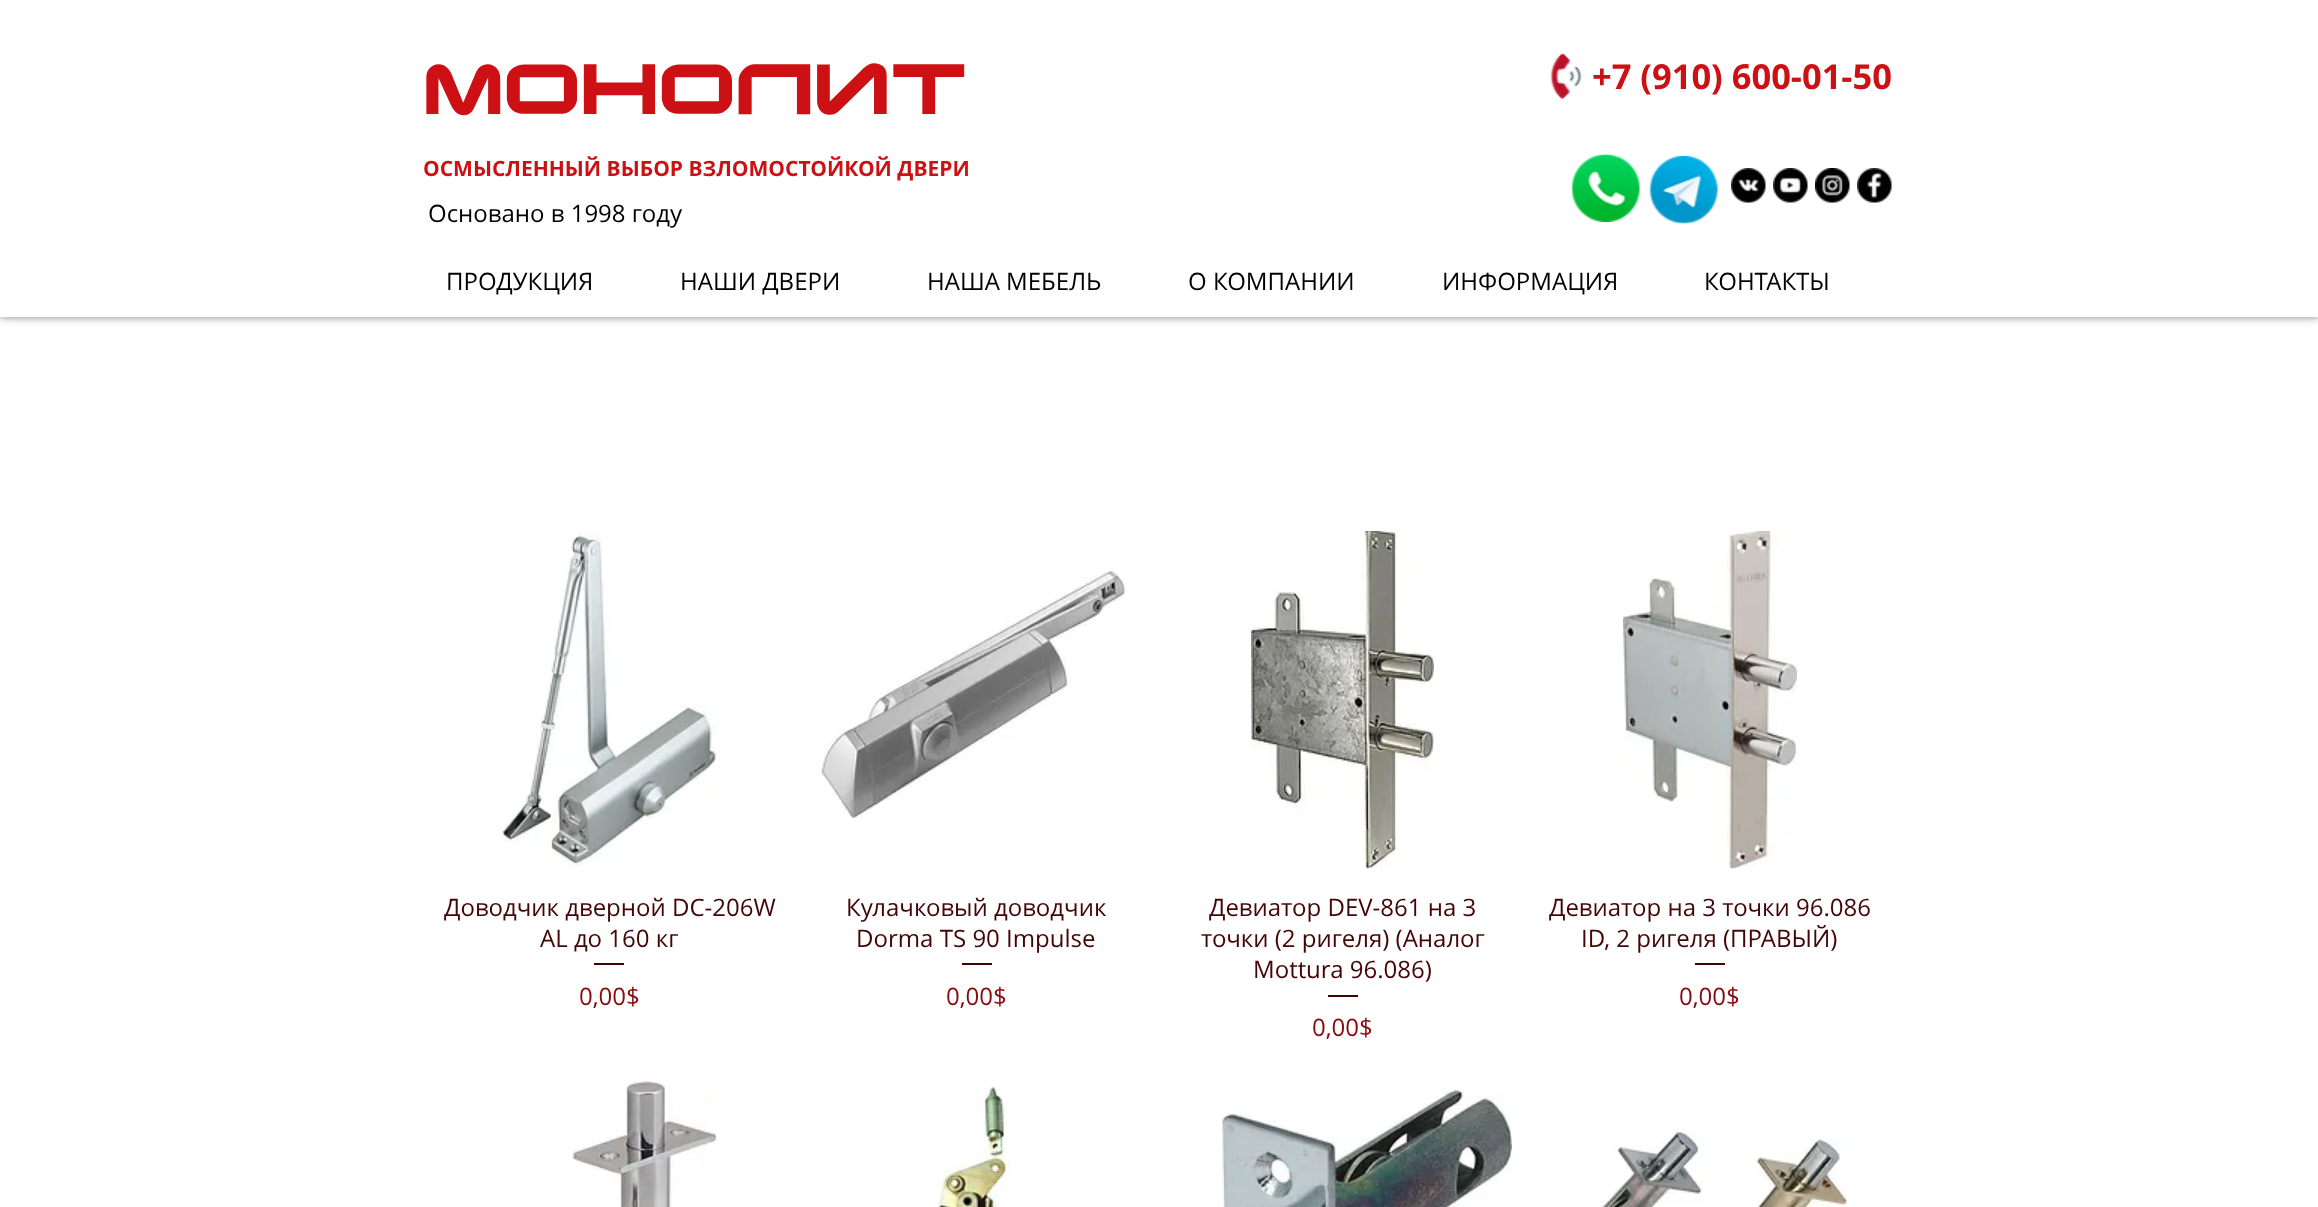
<svg xmlns="http://www.w3.org/2000/svg" width="2318" height="1207" viewBox="0 0 2318 1207">
  <defs>
    <filter id="blur1" x="-50%" y="-200%" width="200%" height="500%"><feGaussianBlur stdDeviation="4"/></filter>
  </defs>
  <rect width="100%" height="100%" fill="#ffffff"/>
  <rect x="0" y="0" width="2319" height="317" fill="#000000" fill-opacity="0.5" filter="url(#blur1)"/>
  <rect x="0" y="0" width="2318" height="317" fill="#ffffff"/>
  <text x="423" y="114" font-family="'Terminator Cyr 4'" font-size="67.5" font-weight="bold" fill="#cc1013">МОНОЛИТ</text>
  <image x="1550" y="53" width="32" height="47" href="img1.png"/>
  <text x="1592" y="89" font-family="Open Sans" font-size="34.5" font-weight="bold" fill="#cc1013">+7 (910) 600-01-50</text>
  <text x="423" y="176" font-family="Open Sans" font-size="21" font-weight="bold" fill="#cc1013">ОСМЫСЛЕННЫЙ ВЫБОР ВЗЛОМОСТОЙКОЙ ДВЕРИ</text>
  <image x="1571" y="154" width="69" height="68" href="img2.png"/>
  <image x="1649" y="156" width="69" height="68" href="img3.png"/>
  <image x="1731" y="168" width="35" height="35" href="img4.png"/>
  <image x="1773" y="168" width="35" height="35" href="img5.png"/>
  <image x="1815" y="168" width="35" height="35" href="img6.png"/>
  <image x="1857" y="168" width="35" height="35" href="img7.png"/>
  <text x="428" y="222" font-family="Open Sans" font-size="24" fill="#000000">Основано в 1998 году</text>
  <text x="446" y="290" font-family="Open Sans" font-size="24" fill="#000000">ПРОДУКЦИЯ</text>
  <text x="680" y="290" font-family="Open Sans" font-size="24" fill="#000000">НАШИ ДВЕРИ</text>
  <text x="927" y="290" font-family="Open Sans" font-size="24" fill="#000000">НАША МЕБЕЛЬ</text>
  <text x="1188" y="290" font-family="Open Sans" font-size="24" fill="#000000">О КОМПАНИИ</text>
  <text x="1442" y="290" font-family="Open Sans" font-size="24" fill="#000000">ИНФОРМАЦИЯ</text>
  <text x="1704" y="290" font-family="Open Sans" font-size="24" fill="#000000">КОНТАКТЫ</text>
  <image x="502" y="531" width="214" height="336" href="img8.png"/>
  <text x="444" y="916" font-family="Open Sans" font-size="24" fill="#440506">Доводчик дверной DC-206W</text>
  <text x="540" y="947" font-family="Open Sans" font-size="24" fill="#440506">AL до 160 кг</text>
  <rect x="594" y="963" width="30" height="2" fill="#440506"/>
  <text x="579" y="1005" font-family="Open Sans" font-size="24" fill="#880a0c">0,00$</text>
  <image x="821" y="567" width="305" height="251" href="img9.png"/>
  <text x="846" y="916" font-family="Open Sans" font-size="24" fill="#440506">Кулачковый доводчик</text>
  <text x="856" y="947" font-family="Open Sans" font-size="24" fill="#440506">Dorma TS 90 Impulse</text>
  <rect x="962" y="963" width="30" height="2" fill="#440506"/>
  <text x="946" y="1005" font-family="Open Sans" font-size="24" fill="#880a0c">0,00$</text>
  <image x="1251" y="531" width="183" height="338" href="img10.png"/>
  <text x="1209" y="916" font-family="Open Sans" font-size="24" fill="#440506">Девиатор DEV-861 на 3</text>
  <text x="1201" y="947" font-family="Open Sans" font-size="24" fill="#440506">точки (2 ригеля) (Аналог</text>
  <text x="1253" y="978" font-family="Open Sans" font-size="24" fill="#440506">Mottura 96.086)</text>
  <rect x="1328" y="995" width="30" height="2" fill="#440506"/>
  <text x="1312" y="1036" font-family="Open Sans" font-size="24" fill="#880a0c">0,00$</text>
  <image x="1623" y="531" width="174" height="338" href="img11.png"/>
  <text x="1549" y="916" font-family="Open Sans" font-size="24" fill="#440506">Девиатор на 3 точки 96.086</text>
  <text x="1581" y="947" font-family="Open Sans" font-size="24" fill="#440506">ID, 2 ригеля (ПРАВЫЙ)</text>
  <rect x="1695" y="963" width="30" height="2" fill="#440506"/>
  <text x="1679" y="1005" font-family="Open Sans" font-size="24" fill="#880a0c">0,00$</text>
  <image x="572" y="1081" width="145" height="126" href="img12.png"/>
  <image x="937" y="1087" width="73" height="120" href="img13.png"/>
  <image x="1222" y="1090" width="290" height="117" href="img14.png"/>
  <image x="1599" y="1128" width="250" height="79" href="img15.png"/>
</svg>
